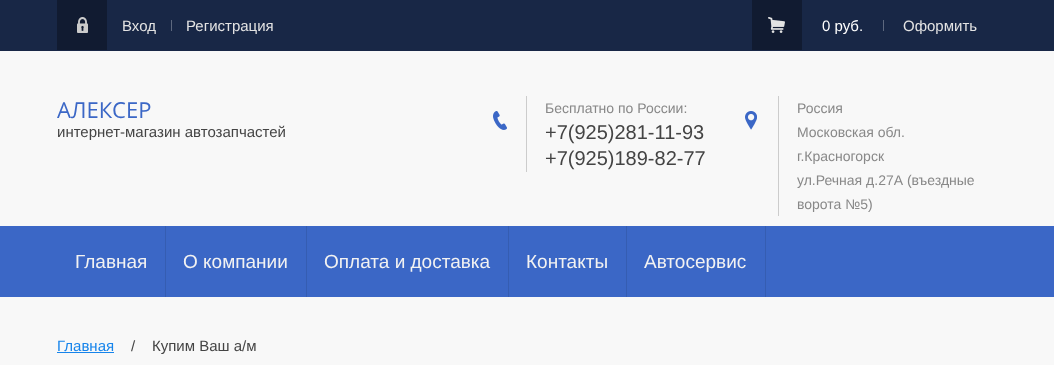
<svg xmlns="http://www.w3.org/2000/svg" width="1054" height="365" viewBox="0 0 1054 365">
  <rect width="100%" height="100%" fill="#f8f8f8"/>
  <rect x="0" y="0" width="1054" height="51" fill="#182746"/>
  <rect x="57" y="0" width="50" height="50" fill="#111b31"/>
  <image x="77" y="17" width="11" height="16" href="img1.png"/>
  <text x="122" y="31" font-family="Liberation Sans" font-size="15" fill="#e3e3e3">Вход</text>
  <rect x="171" y="20" width="1" height="11" fill="#5d687e"/>
  <text x="186" y="31" font-family="Liberation Sans" font-size="15" fill="#e3e3e3">Регистрация</text>
  <rect x="752" y="0" width="50" height="50" fill="#111b31"/>
  <image x="768" y="17" width="17" height="16" href="img2.png"/>
  <text x="822" y="31" font-family="Liberation Sans" font-size="15" fill="#ffffff">0 руб.</text>
  <rect x="883" y="20" width="1" height="11" fill="#5d687e"/>
  <text x="903" y="31" font-family="Liberation Sans" font-size="15" fill="#e3e3e3">Оформить</text>
  <text x="57" y="118" font-family="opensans" font-size="22" fill="#3b67c6">АЛЕКСЕР</text>
  <text x="57" y="137" font-family="Liberation Sans" font-size="15" fill="#444444">интернет-магазин автозапчастей</text>
  <rect x="526" y="96" width="1" height="76" fill="#cccccc"/>
  <text x="545" y="113" font-family="Liberation Sans" font-size="14" fill="#888888">Бесплатно по России:</text>
  <image x="493" y="111" width="14" height="19" href="img3.png"/>
  <text x="545" y="139" font-family="Liberation Sans" font-size="20" fill="#444444">+7(925)281-11-93</text>
  <text x="545" y="165" font-family="Liberation Sans" font-size="20" fill="#444444">+7(925)189-82-77</text>
  <rect x="778" y="96" width="1" height="120" fill="#cccccc"/>
  <text x="797" y="113" font-family="Liberation Sans" font-size="14" fill="#888888">Россия</text>
  <image x="745" y="111" width="12" height="19" href="img4.png"/>
  <text x="797" y="137" font-family="Liberation Sans" font-size="14" fill="#888888">Московская обл.</text>
  <text x="797" y="161" font-family="Liberation Sans" font-size="14" fill="#888888">г.Красногорск</text>
  <text x="797" y="185" font-family="Liberation Sans" font-size="14" fill="#888888">ул.Речная д.27А (въездные</text>
  <text x="797" y="209" font-family="Liberation Sans" font-size="14" fill="#888888">ворота №5)</text>
  <rect x="0" y="226" width="1054" height="71" fill="#3b67c6"/>
  <rect x="165" y="226" width="1" height="71" fill="#355db2"/>
  <text x="75" y="268" font-family="Liberation Sans" font-size="19" fill="#f2f2f2">Главная</text>
  <rect x="306" y="226" width="1" height="71" fill="#355db2"/>
  <text x="183" y="268" font-family="Liberation Sans" font-size="19" fill="#f2f2f2">О компании</text>
  <rect x="508" y="226" width="1" height="71" fill="#355db2"/>
  <text x="324" y="268" font-family="Liberation Sans" font-size="19" fill="#f2f2f2">Оплата и доставка</text>
  <rect x="626" y="226" width="1" height="71" fill="#355db2"/>
  <text x="526" y="268" font-family="Liberation Sans" font-size="19" fill="#f2f2f2">Контакты</text>
  <rect x="765" y="226" width="1" height="71" fill="#355db2"/>
  <text x="644" y="268" font-family="Liberation Sans" font-size="19" fill="#f2f2f2">Автосервис</text>
  <text x="57" y="351" font-family="Liberation Sans" font-size="15" fill="#1684eb">Главная</text>
  <rect x="57" y="352" width="57" height="1" fill="#1684eb"/>
  <text x="131" y="351" font-family="Liberation Sans" font-size="15" fill="#444444">/</text>
  <text x="152" y="351" font-family="Liberation Sans" font-size="15" fill="#444444">Купим Ваш а/м</text>
</svg>
